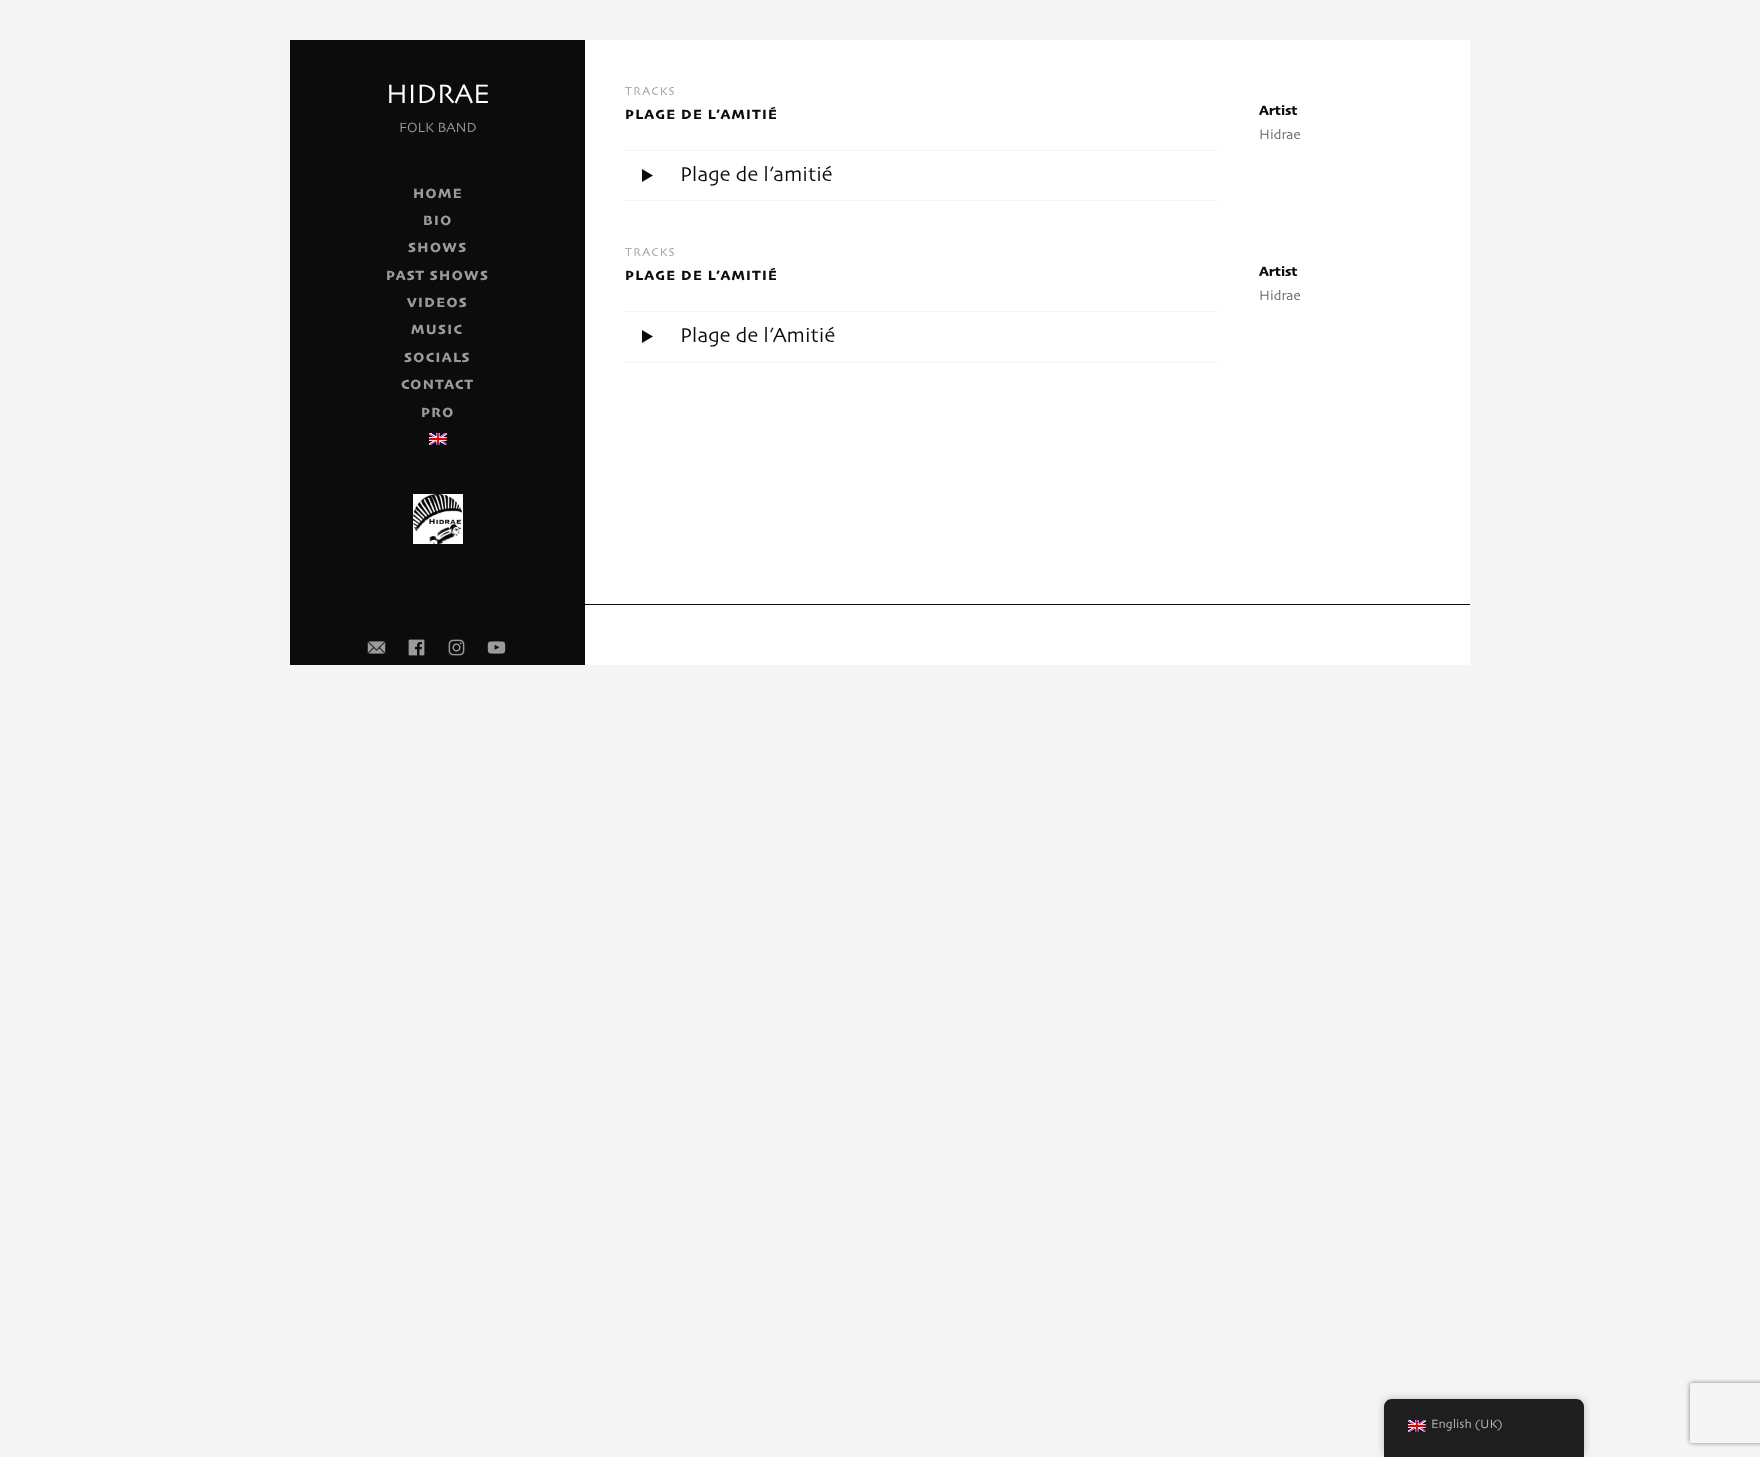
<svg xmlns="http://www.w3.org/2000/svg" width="1760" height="1457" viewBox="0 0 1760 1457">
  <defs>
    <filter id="blur1" x="-50%" y="-200%" width="200%" height="500%"><feGaussianBlur stdDeviation="4"/></filter>
    <clipPath id="clip1"><path d="M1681 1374H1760V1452H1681ZM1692 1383H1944C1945 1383 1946 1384 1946 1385V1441C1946 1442 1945 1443 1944 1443H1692C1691 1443 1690 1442 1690 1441V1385C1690 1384 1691 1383 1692 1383Z" clip-rule="evenodd"/></clipPath>
    <filter id="blur2" x="-50%" y="-200%" width="200%" height="500%"><feGaussianBlur stdDeviation="2.5"/></filter>
  </defs>
  <rect width="100%" height="100%" fill="#f5f5f5"/>
  <rect x="585" y="40" width="885" height="625" fill="#ffffff"/>
  <rect x="290" y="40" width="295" height="625" fill="#0c0c0c"/>
  <text x="386" y="103" font-family="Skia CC" font-size="28" fill="#ffffff">HIDRAE</text>
  <text x="399" y="132" font-family="Skia CC" font-size="14" fill="#9b9b9b">FOLK BAND</text>
  <text x="413" y="198" font-family="Skia CC" font-size="14" font-weight="bold" letter-spacing="1.4" fill="#9b9b9b">HOME</text>
  <text x="423" y="225" font-family="Skia CC" font-size="14" font-weight="bold" letter-spacing="1.4" fill="#9b9b9b">BIO</text>
  <text x="408" y="252" font-family="Skia CC" font-size="14" font-weight="bold" letter-spacing="1.4" fill="#9b9b9b">SHOWS</text>
  <text x="386" y="280" font-family="Skia CC" font-size="14" font-weight="bold" letter-spacing="1.4" fill="#9b9b9b">PAST SHOWS</text>
  <text x="407" y="307" font-family="Skia CC" font-size="14" font-weight="bold" letter-spacing="1.4" fill="#9b9b9b">VIDEOS</text>
  <text x="411" y="334" font-family="Skia CC" font-size="14" font-weight="bold" letter-spacing="1.4" fill="#9b9b9b">MUSIC</text>
  <text x="404" y="362" font-family="Skia CC" font-size="14" font-weight="bold" letter-spacing="1.4" fill="#9b9b9b">SOCIALS</text>
  <text x="401" y="389" font-family="Skia CC" font-size="14" font-weight="bold" letter-spacing="1.4" fill="#9b9b9b">CONTACT</text>
  <text x="421" y="417" font-family="Skia CC" font-size="14" font-weight="bold" letter-spacing="1.4" fill="#9b9b9b">PRO</text>
  <image x="429" y="433" width="18" height="12" href="img1.png"/>
  <image x="413" y="494" width="50" height="50" href="img2.png"/>
  <text x="625" y="95" font-family="Skia CC" font-size="12" letter-spacing="1.4" fill="#9b9b9b">TRACKS</text>
  <text x="625" y="119" font-family="Skia CC" font-size="14" font-weight="bold" letter-spacing="1.4" fill="#0c0c0c">PLAGE DE L’AMITIÉ</text>
  <rect x="625" y="150" width="594" height="1" fill="#f5f5f5"/>
  <rect x="625" y="200" width="594" height="1" fill="#f5f5f5"/>
  <path d="M642 169L653 175.5L642 182Z" fill="#0c0c0c"/>
  <text x="680" y="181" font-family="Skia CC" font-size="21" fill="#0c0c0c">Plage de l’amitié</text>
  <text x="1259" y="115" font-family="Skia CC" font-size="14" font-weight="bold" fill="#0c0c0c">Artist</text>
  <text x="1259" y="139" font-family="Skia CC" font-size="14" fill="#666666">Hidrae</text>
  <text x="625" y="256" font-family="Skia CC" font-size="12" letter-spacing="1.4" fill="#9b9b9b">TRACKS</text>
  <text x="625" y="280" font-family="Skia CC" font-size="14" font-weight="bold" letter-spacing="1.4" fill="#0c0c0c">PLAGE DE L’AMITIÉ</text>
  <rect x="625" y="311" width="594" height="1" fill="#f5f5f5"/>
  <rect x="625" y="362" width="594" height="1" fill="#f5f5f5"/>
  <path d="M642 330L653 336.5L642 343Z" fill="#0c0c0c"/>
  <text x="680" y="342" font-family="Skia CC" font-size="21" fill="#0c0c0c">Plage de l’Amitié</text>
  <text x="1259" y="276" font-family="Skia CC" font-size="14" font-weight="bold" fill="#0c0c0c">Artist</text>
  <text x="1259" y="300" font-family="Skia CC" font-size="14" fill="#666666">Hidrae</text>
  <rect x="585" y="604" width="885" height="1" fill="#0c0c0c"/>
  <image x="367" y="641" width="19" height="13" href="img3.png"/>
  <image x="408" y="639" width="17" height="17" href="img4.png"/>
  <image x="448" y="639" width="17" height="17" href="img5.png"/>
  <image x="487" y="641" width="19" height="13" href="img6.png"/>
  <rect x="1384" y="1399" width="200" height="58" rx="8" fill="#000000" fill-opacity="0.25" filter="url(#blur1)"/>
  <path d="M1392 1399H1576C1580.5 1399 1584 1402.5 1584 1407V1457H1384V1407C1384 1402.5 1387.5 1399 1392 1399Z" fill="#1e1e1e"/>
  <image x="1408" y="1420" width="18" height="12" href="img1.png"/>
  <text x="1431" y="1428" font-family="Skia CC" font-size="12.5" fill="#bdbdbd">English (UK)</text>
  <g clip-path="url(#clip1)">
    <rect x="1690" y="1383" width="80" height="60" rx="2" fill="#808080" filter="url(#blur2)"/>
  </g>
</svg>
